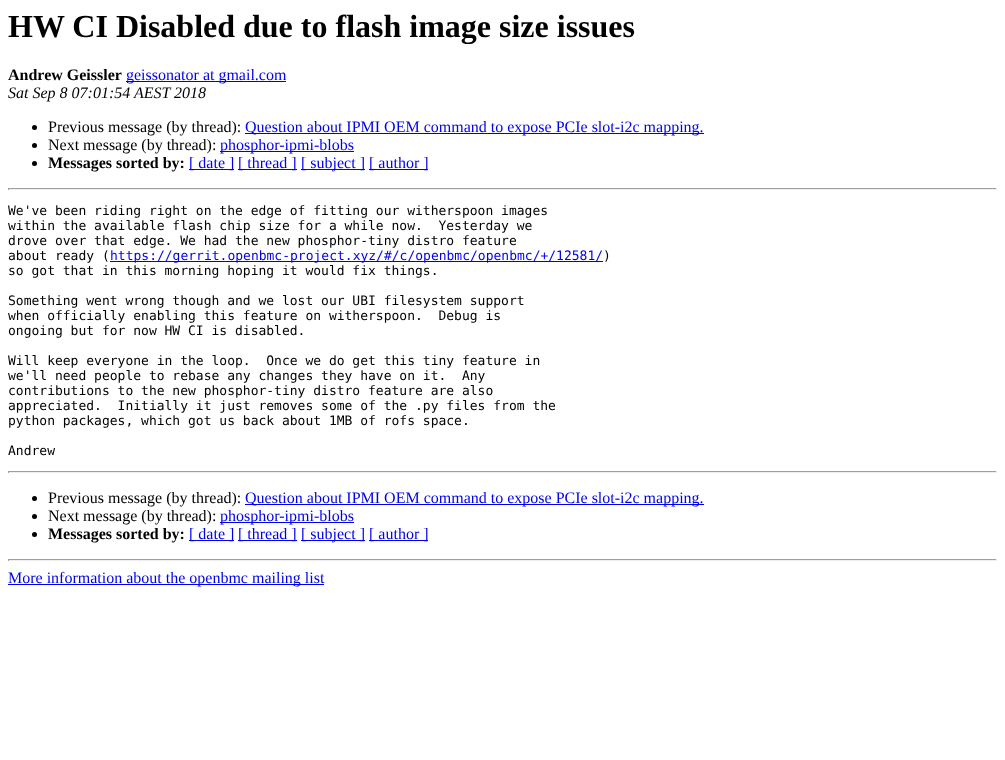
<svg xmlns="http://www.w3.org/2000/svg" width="1005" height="760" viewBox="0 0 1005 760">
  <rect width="100%" height="100%" fill="#ffffff"/>
  <text x="8" y="37" font-family="Liberation Serif" font-size="32" font-weight="bold" fill="#000000">HW CI Disabled due to flash image size issues</text>
  <text x="8" y="80" font-family="Liberation Serif" font-size="16" font-weight="bold" fill="#000000">Andrew Geissler</text>
  <rect x="126" y="81" width="160" height="1" fill="#0000ee"/>
  <text x="126" y="80" font-family="Liberation Serif" font-size="16" fill="#0000ee">geissonator at gmail.com</text>
  <text x="8" y="98" font-family="Liberation Serif" font-size="16" font-style="italic" fill="#000000">Sat Sep 8 07:01:54 AEST 2018</text>
  <circle cx="34.5" cy="127.5" r="2.5" fill="#000000"/>
  <text x="48" y="132" font-family="Liberation Serif" font-size="16" fill="#000000">Previous message (by thread):</text>
  <rect x="245" y="133" width="459" height="1" fill="#0000ee"/>
  <text x="245" y="132" font-family="Liberation Serif" font-size="16" fill="#0000ee">Question about IPMI OEM command to expose PCIe slot-i2c mapping.</text>
  <circle cx="34.5" cy="145.5" r="2.5" fill="#000000"/>
  <text x="48" y="150" font-family="Liberation Serif" font-size="16" fill="#000000">Next message (by thread):</text>
  <rect x="220" y="151" width="134" height="1" fill="#0000ee"/>
  <text x="220" y="150" font-family="Liberation Serif" font-size="16" fill="#0000ee">phosphor-ipmi-blobs</text>
  <circle cx="34.5" cy="163.5" r="2.5" fill="#000000"/>
  <text x="48" y="168" font-family="Liberation Serif" font-size="16" font-weight="bold" fill="#000000">Messages sorted by:</text>
  <rect x="189" y="169" width="45" height="1" fill="#0000ee"/>
  <text x="189" y="168" font-family="Liberation Serif" font-size="16" fill="#0000ee">[ date ]</text>
  <rect x="238" y="169" width="59" height="1" fill="#0000ee"/>
  <text x="238" y="168" font-family="Liberation Serif" font-size="16" fill="#0000ee">[ thread ]</text>
  <rect x="301" y="169" width="64" height="1" fill="#0000ee"/>
  <text x="301" y="168" font-family="Liberation Serif" font-size="16" fill="#0000ee">[ subject ]</text>
  <rect x="369" y="169" width="59" height="1" fill="#0000ee"/>
  <text x="369" y="168" font-family="Liberation Serif" font-size="16" fill="#0000ee">[ author ]</text>
  <rect x="8" y="188" width="989" height="1" fill="#9f9f9f"/>
  <rect x="996" y="188" width="1" height="2" fill="#eeeeee"/>
  <rect x="8" y="189" width="989" height="1" fill="#eeeeee"/>
  <rect x="8" y="188" width="1" height="2" fill="#9f9f9f"/>
  <text x="8" y="215" font-family="DejaVu Sans Mono" font-size="13" fill="#000000">We've been riding right on the edge of fitting our witherspoon images</text>
  <text x="8" y="230" font-family="DejaVu Sans Mono" font-size="13" fill="#000000" xml:space="preserve">within the available flash chip size for a while now.  Yesterday we</text>
  <text x="8" y="245" font-family="DejaVu Sans Mono" font-size="13" fill="#000000">drove over that edge. We had the new phosphor-tiny distro feature</text>
  <text x="8" y="260" font-family="DejaVu Sans Mono" font-size="13" fill="#000000">about ready (</text>
  <rect x="110" y="261" width="493" height="1" fill="#0000ee"/>
  <text x="110" y="260" font-family="DejaVu Sans Mono" font-size="13" fill="#0000ee">https://gerrit.openbmc-project.xyz/#/c/openbmc/openbmc/+/12581/</text>
  <text x="603" y="260" font-family="DejaVu Sans Mono" font-size="13" fill="#000000">)</text>
  <text x="8" y="275" font-family="DejaVu Sans Mono" font-size="13" fill="#000000">so got that in this morning hoping it would fix things.</text>
  <text x="8" y="305" font-family="DejaVu Sans Mono" font-size="13" fill="#000000">Something went wrong though and we lost our UBI filesystem support</text>
  <text x="8" y="320" font-family="DejaVu Sans Mono" font-size="13" fill="#000000" xml:space="preserve">when officially enabling this feature on witherspoon.  Debug is</text>
  <text x="8" y="335" font-family="DejaVu Sans Mono" font-size="13" fill="#000000">ongoing but for now HW CI is disabled.</text>
  <text x="8" y="365" font-family="DejaVu Sans Mono" font-size="13" fill="#000000" xml:space="preserve">Will keep everyone in the loop.  Once we do get this tiny feature in</text>
  <text x="8" y="380" font-family="DejaVu Sans Mono" font-size="13" fill="#000000" xml:space="preserve">we'll need people to rebase any changes they have on it.  Any</text>
  <text x="8" y="395" font-family="DejaVu Sans Mono" font-size="13" fill="#000000">contributions to the new phosphor-tiny distro feature are also</text>
  <text x="8" y="410" font-family="DejaVu Sans Mono" font-size="13" fill="#000000" xml:space="preserve">appreciated.  Initially it just removes some of the .py files from the</text>
  <text x="8" y="425" font-family="DejaVu Sans Mono" font-size="13" fill="#000000">python packages, which got us back about 1MB of rofs space.</text>
  <text x="8" y="455" font-family="DejaVu Sans Mono" font-size="13" fill="#000000">Andrew</text>
  <rect x="8" y="471" width="989" height="1" fill="#9f9f9f"/>
  <rect x="996" y="471" width="1" height="2" fill="#eeeeee"/>
  <rect x="8" y="472" width="989" height="1" fill="#eeeeee"/>
  <rect x="8" y="471" width="1" height="2" fill="#9f9f9f"/>
  <circle cx="34.5" cy="498.5" r="2.5" fill="#000000"/>
  <text x="48" y="503" font-family="Liberation Serif" font-size="16" fill="#000000">Previous message (by thread):</text>
  <rect x="245" y="504" width="459" height="1" fill="#0000ee"/>
  <text x="245" y="503" font-family="Liberation Serif" font-size="16" fill="#0000ee">Question about IPMI OEM command to expose PCIe slot-i2c mapping.</text>
  <circle cx="34.5" cy="516.5" r="2.5" fill="#000000"/>
  <text x="48" y="521" font-family="Liberation Serif" font-size="16" fill="#000000">Next message (by thread):</text>
  <rect x="220" y="522" width="134" height="1" fill="#0000ee"/>
  <text x="220" y="521" font-family="Liberation Serif" font-size="16" fill="#0000ee">phosphor-ipmi-blobs</text>
  <circle cx="34.5" cy="534.5" r="2.5" fill="#000000"/>
  <text x="48" y="539" font-family="Liberation Serif" font-size="16" font-weight="bold" fill="#000000">Messages sorted by:</text>
  <rect x="189" y="540" width="45" height="1" fill="#0000ee"/>
  <text x="189" y="539" font-family="Liberation Serif" font-size="16" fill="#0000ee">[ date ]</text>
  <rect x="238" y="540" width="59" height="1" fill="#0000ee"/>
  <text x="238" y="539" font-family="Liberation Serif" font-size="16" fill="#0000ee">[ thread ]</text>
  <rect x="301" y="540" width="64" height="1" fill="#0000ee"/>
  <text x="301" y="539" font-family="Liberation Serif" font-size="16" fill="#0000ee">[ subject ]</text>
  <rect x="369" y="540" width="59" height="1" fill="#0000ee"/>
  <text x="369" y="539" font-family="Liberation Serif" font-size="16" fill="#0000ee">[ author ]</text>
  <rect x="8" y="559" width="989" height="1" fill="#9f9f9f"/>
  <rect x="996" y="559" width="1" height="2" fill="#eeeeee"/>
  <rect x="8" y="560" width="989" height="1" fill="#eeeeee"/>
  <rect x="8" y="559" width="1" height="2" fill="#9f9f9f"/>
  <rect x="8" y="584" width="316" height="1" fill="#0000ee"/>
  <text x="8" y="583" font-family="Liberation Serif" font-size="16" fill="#0000ee">More information about the openbmc mailing list</text>
</svg>
